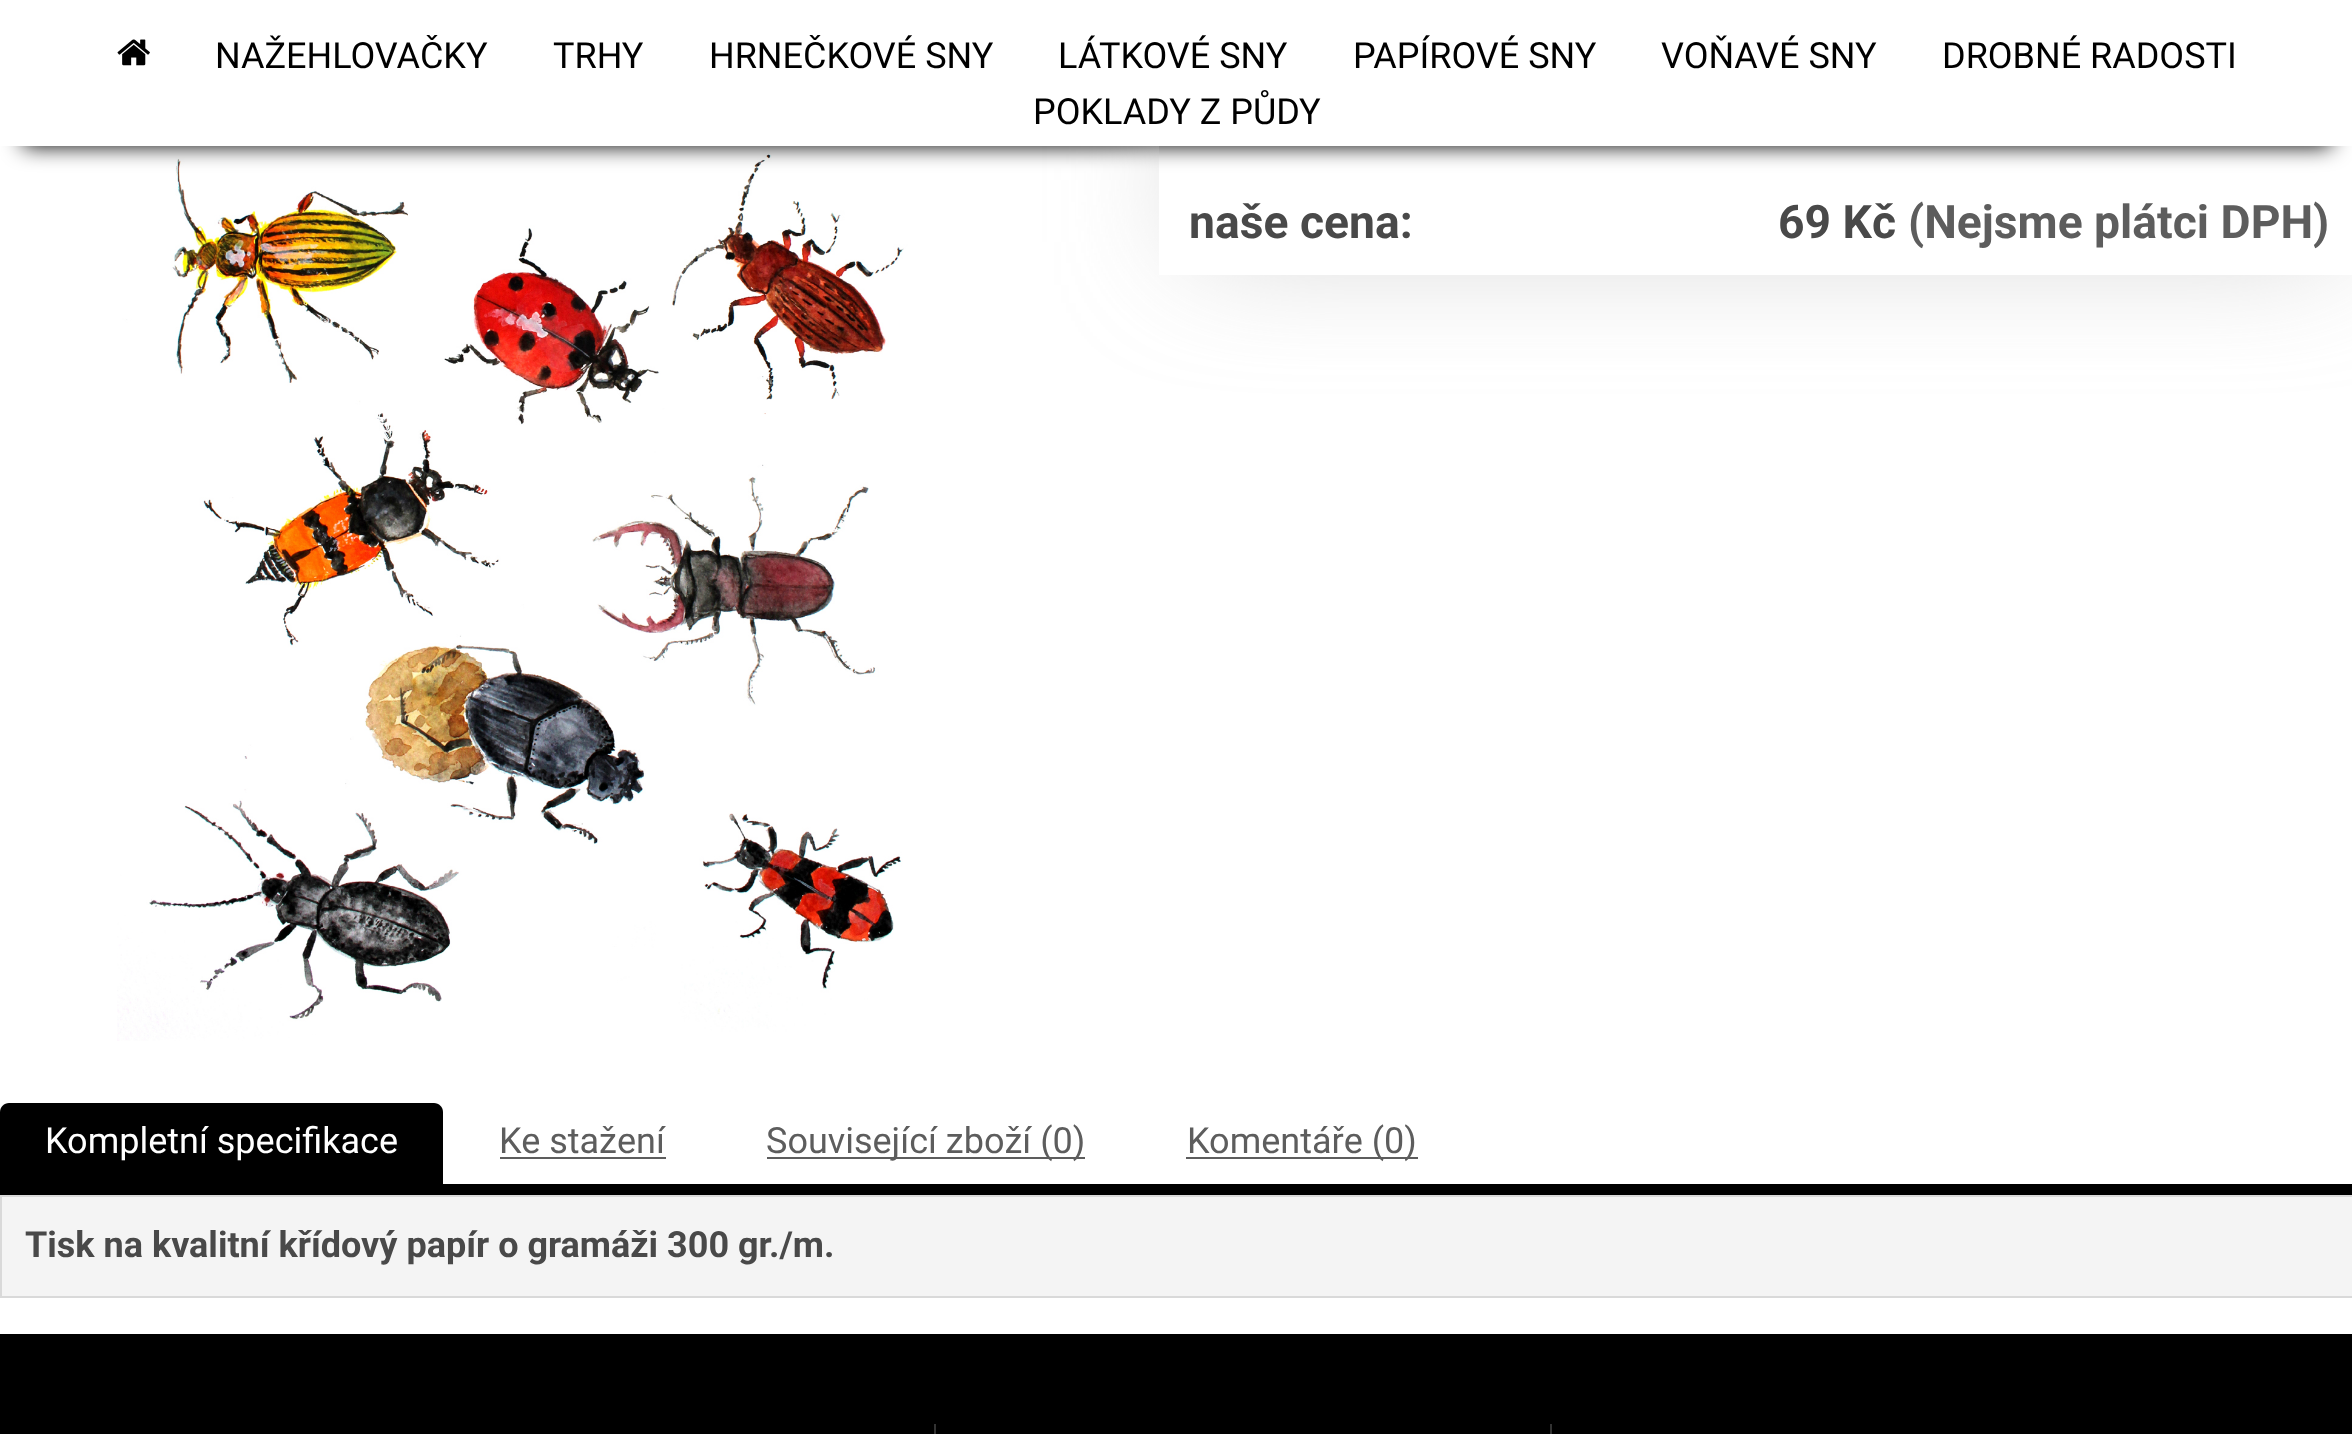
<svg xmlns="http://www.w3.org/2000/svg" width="2352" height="1434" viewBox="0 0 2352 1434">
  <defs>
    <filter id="blur1" x="-50%" y="-200%" width="200%" height="500%"><feGaussianBlur stdDeviation="11"/></filter>
    <clipPath id="clip1"><path d="M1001 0H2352V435H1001ZM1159 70H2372V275H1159Z" clip-rule="evenodd"/></clipPath>
    <filter id="blur2" x="-50%" y="-200%" width="200%" height="500%"><feGaussianBlur stdDeviation="63.5"/></filter>
  </defs>
  <rect width="100%" height="100%" fill="#ffffff"/>
  <image x="117" y="146" width="826" height="895" href="img2.png"/>
  <rect x="23" y="45" width="2308" height="101" fill="#000000" filter="url(#blur1)"/>
  <g clip-path="url(#clip1)">
    <rect x="1193" y="101" width="1145" height="142" fill="#cccccc" filter="url(#blur2)"/>
  </g>
  <rect x="0" y="0" width="2352" height="146" fill="#ffffff"/>
  <image x="117" y="39" width="33" height="27" href="img1.png"/>
  <text x="215" y="68" font-family="Roboto" font-size="36" fill="#000000">NAŽEHLOVAČKY</text>
  <text x="553" y="68" font-family="Roboto" font-size="36" fill="#000000">TRHY</text>
  <text x="709" y="68" font-family="Roboto" font-size="36" fill="#000000">HRNEČKOVÉ SNY</text>
  <text x="1058" y="68" font-family="Roboto" font-size="36" fill="#000000">LÁTKOVÉ SNY</text>
  <text x="1353" y="68" font-family="Roboto" font-size="36" fill="#000000">PAPÍROVÉ SNY</text>
  <text x="1661" y="68" font-family="Roboto" font-size="36" fill="#000000">VOŇAVÉ SNY</text>
  <text x="1942" y="68" font-family="Roboto" font-size="36" fill="#000000">DROBNÉ RADOSTI</text>
  <text x="1033" y="124" font-family="Roboto" font-size="36" fill="#000000">POKLADY Z PŮDY</text>
  <text x="1189" y="238" font-family="Roboto" font-size="46.25" font-weight="bold" fill="#494949">naše cena:</text>
  <text x="1778" y="238" font-family="Roboto" font-size="46.25" font-weight="bold" fill="#494949">69 Kč</text>
  <text x="1908" y="238" font-family="Roboto" font-size="46.25" font-weight="bold" fill="#5d5d5d">(Nejsme plátci DPH)</text>
  <rect x="0" y="1184" width="2352" height="11" fill="#000000"/>
  <path d="M9 1103H434C439 1103 443 1107 443 1112V1184H0V1112C0 1107 4 1103 9 1103Z" fill="#000000"/>
  <text x="45" y="1153" font-family="Roboto" font-size="36" fill="#ffffff">Kompletní specifikace</text>
  <text x="499" y="1153" font-family="Roboto" font-size="36" fill="#5d5d5d">Ke stažení</text>
  <rect x="500" y="1157" width="166" height="2" fill="#5d5d5d"/>
  <rect x="767" y="1157" width="318" height="2" fill="#5d5d5d"/>
  <text x="766" y="1153" font-family="Roboto" font-size="36" fill="#5d5d5d">Související zboží (0)</text>
  <rect x="1186" y="1157" width="232" height="2" fill="#5d5d5d"/>
  <text x="1187" y="1153" font-family="Roboto" font-size="36" fill="#5d5d5d">Komentáře (0)</text>
  <rect x="1" y="1196" width="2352" height="101" fill="#f4f4f4" stroke="#d9d9d9" stroke-width="2"/>
  <text x="25" y="1257" font-family="Roboto" font-size="36" font-weight="bold" fill="#494949">Tisk na kvalitní křídový papír o gramáži 300 gr./m.</text>
  <rect x="0" y="1334" width="2352" height="100" fill="#000000"/>
  <rect x="934" y="1424" width="2" height="10" fill="#333333"/>
  <rect x="1550" y="1424" width="2" height="10" fill="#333333"/>
</svg>
